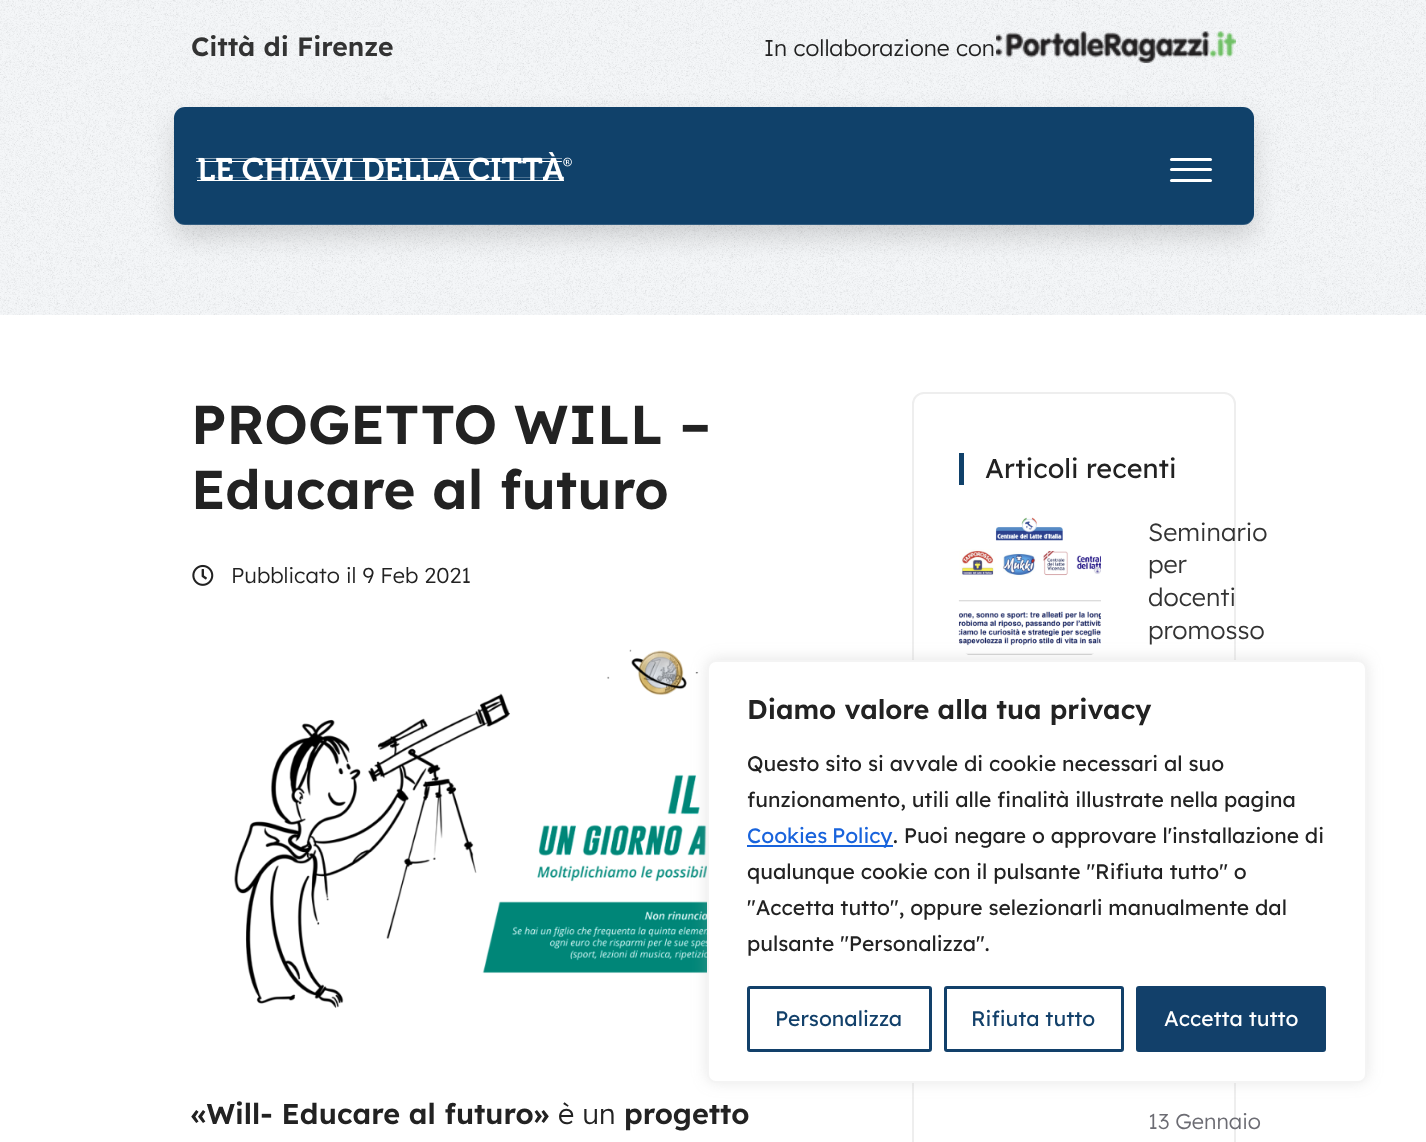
<svg xmlns="http://www.w3.org/2000/svg" width="1426" height="1142" viewBox="0 0 1426 1142">
  <defs>
    <filter id="blur1" x="-50%" y="-200%" width="200%" height="500%"><feGaussianBlur stdDeviation="12"/></filter>
    <filter id="blur2" x="-50%" y="-200%" width="200%" height="500%"><feGaussianBlur stdDeviation="7.5"/></filter>
  </defs>
  <rect width="100%" height="100%" fill="#ffffff"/>
  <rect x="0" y="0" width="1426" height="315" fill="#f4f6f8"/>
  <image x="0" y="0" width="1426" height="315" href="img1.png"/>
  <text x="191" y="56" font-family="Lexend" font-size="26.5" font-weight="600" fill="#333333">Città di Firenze</text>
  <text x="764" y="56" font-family="Lexend" font-size="22.75" font-weight="300" fill="#222222">In collaborazione con</text>
  <image x="996" y="31" width="240" height="32" href="img2.png"/>
  <rect x="174" y="119" width="1080" height="118" rx="11" fill="#000000" fill-opacity="0.15" filter="url(#blur1)"/>
  <rect x="174" y="107" width="1080" height="118" rx="11" fill="#10416a"/>
  <path d="M174 213C174 219 178 225 185 225H1243C1250 225 1254 219 1254 213C1254 219 1249 224 1244 224H184C179 224 174 219 174 213Z" fill="#ffffff" fill-opacity="0.15"/>
  <image x="196" y="152" width="376" height="29" href="img3.png"/>
  <rect x="1170" y="158" width="42" height="3" rx="1.5" fill="#ffffff"/>
  <rect x="1170" y="168" width="42" height="3" rx="1.5" fill="#ffffff"/>
  <rect x="1170" y="179" width="42" height="3" rx="1.5" fill="#ffffff"/>
  <text x="191" y="444" font-family="Lexend" font-size="54.5" font-weight="600" fill="#222222">PROGETTO WILL –</text>
  <text x="191" y="509" font-family="Lexend" font-size="54.5" font-weight="600" fill="#222222">Educare al futuro</text>
  <image x="192" y="564" width="22" height="22" href="img4.png"/>
  <text x="231" y="583" font-family="Lexend" font-size="21.6" font-weight="300" fill="#222222">Pubblicato il 9 Feb 2021</text>
  <image x="234" y="649" width="473" height="359" href="img5.png"/>
  <text x="191" y="1124" font-family="Lexend" font-size="28.75" font-weight="600" fill="#222222">«Will- Educare al futuro»</text>
  <text x="558" y="1124" font-family="Lexend" font-size="28.75" font-weight="300" fill="#222222">è un</text>
  <text x="624" y="1124" font-family="Lexend" font-size="28.75" font-weight="600" fill="#222222">progetto</text>
  <rect x="913" y="393" width="322" height="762" rx="11" fill="none" stroke="#eeeeee" stroke-width="2"/>
  <rect x="959" y="453" width="5" height="32" fill="#10416a"/>
  <text x="985" y="478" font-family="Lexend" font-size="27" fill="#222222">Articoli recenti</text>
  <image x="958" y="517" width="143" height="138" href="img6.png"/>
  <text x="1148" y="541" font-family="Lexend" font-size="25" font-weight="300" fill="#333333">Seminario</text>
  <text x="1148" y="573" font-family="Lexend" font-size="25" font-weight="300" fill="#333333">per</text>
  <text x="1148" y="606" font-family="Lexend" font-size="25" font-weight="300" fill="#333333">docenti</text>
  <text x="1148" y="639" font-family="Lexend" font-size="25" font-weight="300" fill="#333333">promosso</text>
  <text x="1148" y="1129" font-family="Lexend" font-size="21.6" font-weight="300" fill="#6c6c73">13 Gennaio</text>
  <rect x="707" y="659" width="660" height="423" rx="9" fill="#acabab" fill-opacity="0.3" filter="url(#blur2)"/>
  <rect x="708" y="661" width="658" height="421" rx="8" fill="#ffffff" stroke="#f4f4f4" stroke-width="2"/>
  <text x="747" y="719" font-family="Lexend" font-size="27" font-weight="600" fill="#222222">Diamo valore alla tua privacy</text>
  <text x="747" y="771" font-family="Lexend" font-size="21" fill="#222222">Questo sito si avvale di cookie necessari al suo</text>
  <text x="747" y="807" font-family="Lexend" font-size="21" fill="#222222">funzionamento, utili alle finalità illustrate nella pagina</text>
  <rect x="747" y="845" width="146" height="2" fill="#1863dc"/>
  <text x="747" y="843" word-spacing="-1" font-family="Lexend" font-size="21" fill="#1863dc">Cookies Policy</text>
  <text x="893" y="843" font-family="Lexend" font-size="21" fill="#222222">. Puoi negare o approvare l'installazione di</text>
  <text x="747" y="879" font-family="Lexend" font-size="21" fill="#222222">qualunque cookie con il pulsante "Rifiuta tutto" o</text>
  <text x="747" y="915" font-family="Lexend" font-size="21" fill="#222222">"Accetta tutto", oppure selezionarli manualmente dal</text>
  <text x="747" y="951" font-family="Lexend" font-size="21" fill="#222222">pulsante "Personalizza".</text>
  <rect x="748.5" y="987.5" width="182" height="63" rx="1.5" fill="none" stroke="#12406a" stroke-width="3"/>
  <text x="775" y="1026" font-family="Lexend" font-size="21" fill="#12406a">Personalizza</text>
  <rect x="945.5" y="987.5" width="177" height="63" rx="1.5" fill="none" stroke="#12406a" stroke-width="3"/>
  <text x="971" y="1026" font-family="Lexend" font-size="21" fill="#12406a">Rifiuta tutto</text>
  <rect x="1137.5" y="987.5" width="187" height="63" rx="1.5" fill="#12406a" stroke="#12406a" stroke-width="3"/>
  <text x="1164" y="1026" font-family="Lexend" font-size="21" fill="#ffffff">Accetta tutto</text>
</svg>
